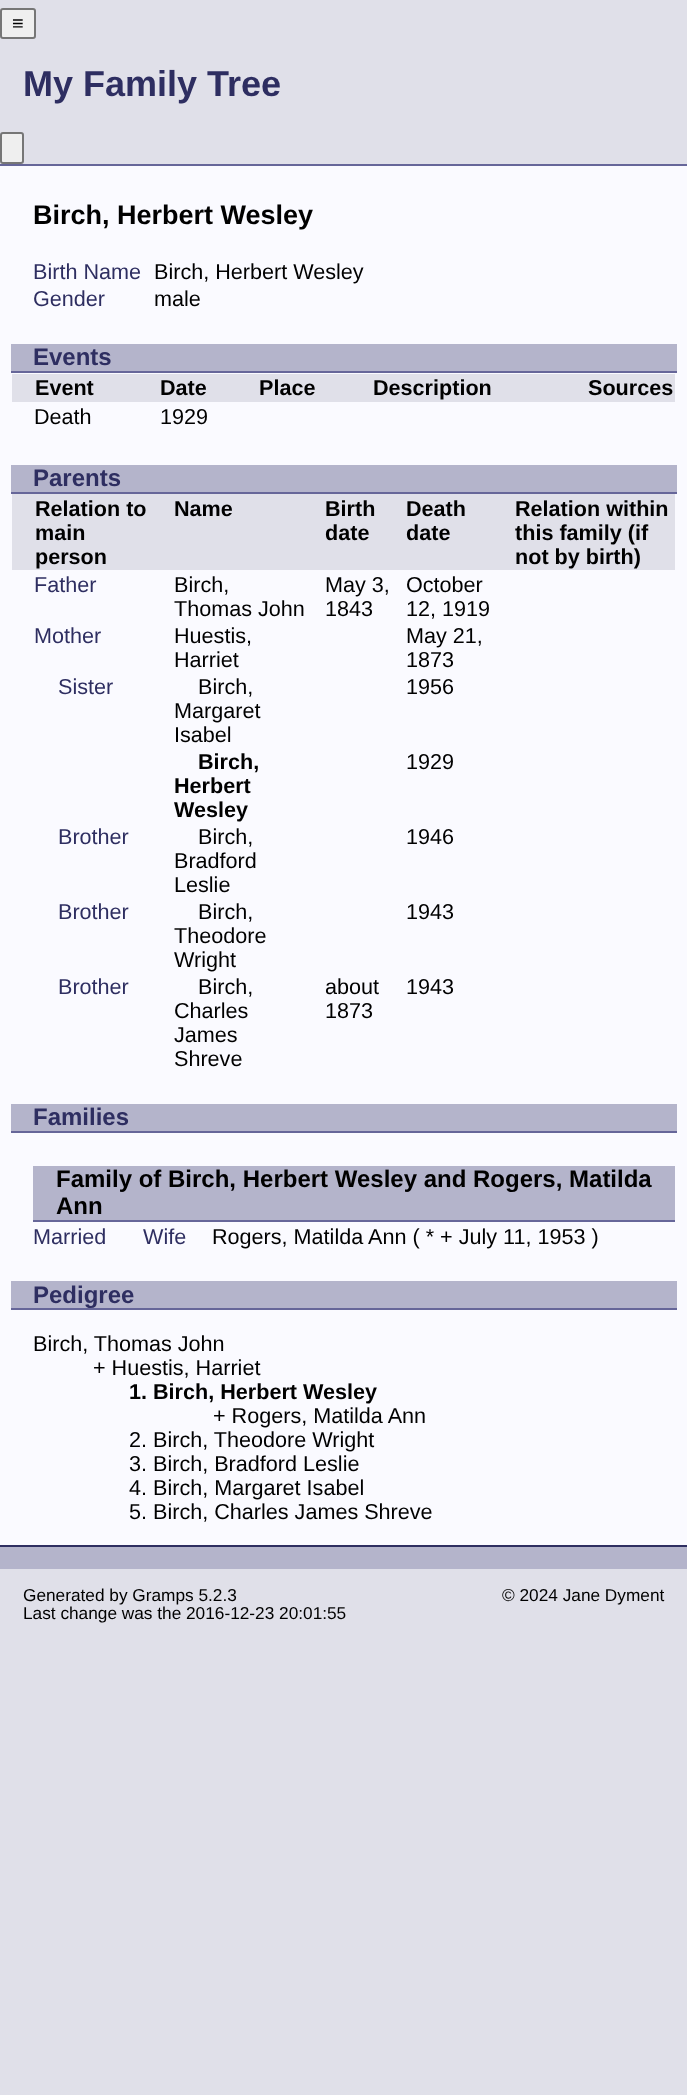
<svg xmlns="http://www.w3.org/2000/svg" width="687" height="2095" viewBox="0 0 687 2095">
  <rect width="100%" height="100%" fill="#e0e0e9"/>
  <rect x="1" y="9" width="34" height="29" rx="2" fill="#efefef" stroke="#767676" stroke-width="2"/>
  <text x="12" y="30" font-family="Liberation Sans" font-size="20" fill="#000000">≡</text>
  <text x="23" y="96" font-family="Liberation Sans" font-size="36" font-weight="bold" fill="#2e2e61">My Family Tree</text>
  <rect x="1" y="133" width="22" height="30" rx="2" fill="#efefef" stroke="#767676" stroke-width="2"/>
  <rect x="0" y="166" width="687" height="1379" fill="#fafaff"/>
  <rect x="0" y="164" width="687" height="2" fill="#666699"/>
  <text x="33" y="224" font-family="Liberation Sans" font-size="27" font-weight="bold" fill="#000000">Birch, Herbert Wesley</text>
  <text x="33" y="279" font-family="Liberation Sans" font-size="21.6" fill="#2e2e61">Birth Name</text>
  <text x="154" y="279" font-family="Liberation Sans" font-size="21.6" fill="#000000">Birch, Herbert Wesley</text>
  <text x="33" y="306" font-family="Liberation Sans" font-size="21.6" fill="#2e2e61">Gender</text>
  <text x="154" y="306" font-family="Liberation Sans" font-size="21.6" fill="#000000">male</text>
  <rect x="11" y="344" width="666" height="27" fill="#b4b4cb"/>
  <rect x="11" y="371" width="666" height="2" fill="#666699"/>
  <text x="33" y="365" font-family="Liberation Sans" font-size="24" font-weight="bold" fill="#2e2e61">Events</text>
  <rect x="12" y="374" width="663" height="28" fill="#e0e0e9"/>
  <text x="35" y="395" font-family="Liberation Sans" font-size="21.6" font-weight="bold" fill="#000000">Event</text>
  <text x="160" y="395" font-family="Liberation Sans" font-size="21.6" font-weight="bold" fill="#000000">Date</text>
  <text x="259" y="395" font-family="Liberation Sans" font-size="21.6" font-weight="bold" fill="#000000">Place</text>
  <text x="373" y="395" font-family="Liberation Sans" font-size="21.6" font-weight="bold" fill="#000000">Description</text>
  <text x="588" y="395" font-family="Liberation Sans" font-size="21.6" font-weight="bold" fill="#000000">Sources</text>
  <text x="34" y="424" font-family="Liberation Sans" font-size="21.6" fill="#000000">Death</text>
  <text x="160" y="424" font-family="Liberation Sans" font-size="21.6" fill="#000000">1929</text>
  <rect x="11" y="465" width="666" height="27" fill="#b4b4cb"/>
  <rect x="11" y="492" width="666" height="2" fill="#666699"/>
  <text x="33" y="486" font-family="Liberation Sans" font-size="24" font-weight="bold" fill="#2e2e61">Parents</text>
  <rect x="12" y="494" width="663" height="76" fill="#e0e0e9"/>
  <text x="35" y="516" font-family="Liberation Sans" font-size="21.6" font-weight="bold" fill="#000000">Relation to</text>
  <text x="35" y="540" font-family="Liberation Sans" font-size="21.6" font-weight="bold" fill="#000000">main</text>
  <text x="35" y="564" font-family="Liberation Sans" font-size="21.6" font-weight="bold" fill="#000000">person</text>
  <text x="174" y="516" font-family="Liberation Sans" font-size="21.6" font-weight="bold" fill="#000000">Name</text>
  <text x="325" y="516" font-family="Liberation Sans" font-size="21.6" font-weight="bold" fill="#000000">Birth</text>
  <text x="325" y="540" font-family="Liberation Sans" font-size="21.6" font-weight="bold" fill="#000000">date</text>
  <text x="406" y="516" font-family="Liberation Sans" font-size="21.6" font-weight="bold" fill="#000000">Death</text>
  <text x="406" y="540" font-family="Liberation Sans" font-size="21.6" font-weight="bold" fill="#000000">date</text>
  <text x="515" y="516" font-family="Liberation Sans" font-size="21.6" font-weight="bold" fill="#000000">Relation within</text>
  <text x="515" y="540" font-family="Liberation Sans" font-size="21.6" font-weight="bold" fill="#000000">this family (if</text>
  <text x="515" y="564" font-family="Liberation Sans" font-size="21.6" font-weight="bold" fill="#000000">not by birth)</text>
  <text x="34" y="592" font-family="Liberation Sans" font-size="21.6" fill="#2e2e61">Father</text>
  <text x="174" y="592" font-family="Liberation Sans" font-size="21.6" fill="#000000">Birch,</text>
  <text x="174" y="616" font-family="Liberation Sans" font-size="21.6" fill="#000000">Thomas John</text>
  <text x="325" y="592" font-family="Liberation Sans" font-size="21.6" fill="#000000">May 3,</text>
  <text x="325" y="616" font-family="Liberation Sans" font-size="21.6" fill="#000000">1843</text>
  <text x="406" y="592" font-family="Liberation Sans" font-size="21.6" fill="#000000">October</text>
  <text x="406" y="616" font-family="Liberation Sans" font-size="21.6" fill="#000000">12, 1919</text>
  <text x="34" y="643" font-family="Liberation Sans" font-size="21.6" fill="#2e2e61">Mother</text>
  <text x="174" y="643" font-family="Liberation Sans" font-size="21.6" fill="#000000">Huestis,</text>
  <text x="174" y="667" font-family="Liberation Sans" font-size="21.6" fill="#000000">Harriet</text>
  <text x="406" y="643" font-family="Liberation Sans" font-size="21.6" fill="#000000">May 21,</text>
  <text x="406" y="667" font-family="Liberation Sans" font-size="21.6" fill="#000000">1873</text>
  <text x="58" y="694" font-family="Liberation Sans" font-size="21.6" fill="#2e2e61">Sister</text>
  <text x="198" y="694" font-family="Liberation Sans" font-size="21.6" fill="#000000">Birch,</text>
  <text x="174" y="718" font-family="Liberation Sans" font-size="21.6" fill="#000000">Margaret</text>
  <text x="174" y="742" font-family="Liberation Sans" font-size="21.6" fill="#000000">Isabel</text>
  <text x="406" y="694" font-family="Liberation Sans" font-size="21.6" fill="#000000">1956</text>
  <text x="198" y="769" font-family="Liberation Sans" font-size="21.6" font-weight="bold" fill="#000000">Birch,</text>
  <text x="174" y="793" font-family="Liberation Sans" font-size="21.6" font-weight="bold" fill="#000000">Herbert</text>
  <text x="174" y="817" font-family="Liberation Sans" font-size="21.6" font-weight="bold" fill="#000000">Wesley</text>
  <text x="406" y="769" font-family="Liberation Sans" font-size="21.6" fill="#000000">1929</text>
  <text x="58" y="844" font-family="Liberation Sans" font-size="21.6" fill="#2e2e61">Brother</text>
  <text x="198" y="844" font-family="Liberation Sans" font-size="21.6" fill="#000000">Birch,</text>
  <text x="174" y="868" font-family="Liberation Sans" font-size="21.6" fill="#000000">Bradford</text>
  <text x="174" y="892" font-family="Liberation Sans" font-size="21.6" fill="#000000">Leslie</text>
  <text x="406" y="844" font-family="Liberation Sans" font-size="21.6" fill="#000000">1946</text>
  <text x="58" y="919" font-family="Liberation Sans" font-size="21.6" fill="#2e2e61">Brother</text>
  <text x="198" y="919" font-family="Liberation Sans" font-size="21.6" fill="#000000">Birch,</text>
  <text x="174" y="943" font-family="Liberation Sans" font-size="21.6" fill="#000000">Theodore</text>
  <text x="174" y="967" font-family="Liberation Sans" font-size="21.6" fill="#000000">Wright</text>
  <text x="406" y="919" font-family="Liberation Sans" font-size="21.6" fill="#000000">1943</text>
  <text x="58" y="994" font-family="Liberation Sans" font-size="21.6" fill="#2e2e61">Brother</text>
  <text x="198" y="994" font-family="Liberation Sans" font-size="21.6" fill="#000000">Birch,</text>
  <text x="174" y="1018" font-family="Liberation Sans" font-size="21.6" fill="#000000">Charles</text>
  <text x="174" y="1042" font-family="Liberation Sans" font-size="21.6" fill="#000000">James</text>
  <text x="174" y="1066" font-family="Liberation Sans" font-size="21.6" fill="#000000">Shreve</text>
  <text x="325" y="994" font-family="Liberation Sans" font-size="21.6" fill="#000000">about</text>
  <text x="325" y="1018" font-family="Liberation Sans" font-size="21.6" fill="#000000">1873</text>
  <text x="406" y="994" font-family="Liberation Sans" font-size="21.6" fill="#000000">1943</text>
  <rect x="11" y="1104" width="666" height="27" fill="#b4b4cb"/>
  <rect x="11" y="1131" width="666" height="2" fill="#666699"/>
  <text x="33" y="1125" font-family="Liberation Sans" font-size="24" font-weight="bold" fill="#2e2e61">Families</text>
  <rect x="33" y="1166" width="642" height="54" fill="#b4b4cb"/>
  <rect x="33" y="1220" width="642" height="2" fill="#666699"/>
  <text x="56" y="1187" font-family="Liberation Sans" font-size="24" font-weight="bold" fill="#000000">Family of Birch, Herbert Wesley and Rogers, Matilda</text>
  <text x="56" y="1214" font-family="Liberation Sans" font-size="24" font-weight="bold" fill="#000000">Ann</text>
  <text x="33" y="1244" font-family="Liberation Sans" font-size="21.6" fill="#2e2e61">Married</text>
  <text x="143" y="1244" font-family="Liberation Sans" font-size="21.6" fill="#2e2e61">Wife</text>
  <text x="212" y="1244" font-family="Liberation Sans" font-size="21.6" fill="#000000">Rogers, Matilda Ann ( * + July 11, 1953 )</text>
  <rect x="11" y="1281" width="666" height="27" fill="#b4b4cb"/>
  <rect x="11" y="1308" width="666" height="2" fill="#666699"/>
  <text x="33" y="1303" font-family="Liberation Sans" font-size="24" font-weight="bold" fill="#2e2e61">Pedigree</text>
  <text x="33" y="1351" font-family="Liberation Sans" font-size="21.6" fill="#000000">Birch, Thomas John</text>
  <text x="93" y="1375" font-family="Liberation Sans" font-size="21.6" fill="#000000">+ Huestis, Harriet</text>
  <text x="129" y="1399" font-family="Liberation Sans" font-size="21.6" font-weight="bold" fill="#000000">1. Birch, Herbert Wesley</text>
  <text x="213" y="1423" font-family="Liberation Sans" font-size="21.6" fill="#000000">+ Rogers, Matilda Ann</text>
  <text x="129" y="1447" font-family="Liberation Sans" font-size="21.6" fill="#000000">2. Birch, Theodore Wright</text>
  <text x="129" y="1471" font-family="Liberation Sans" font-size="21.6" fill="#000000">3. Birch, Bradford Leslie</text>
  <text x="129" y="1495" font-family="Liberation Sans" font-size="21.6" fill="#000000">4. Birch, Margaret Isabel</text>
  <text x="129" y="1519" font-family="Liberation Sans" font-size="21.6" fill="#000000">5. Birch, Charles James Shreve</text>
  <rect x="0" y="1547" width="687" height="22" fill="#b4b4cb"/>
  <rect x="0" y="1545" width="687" height="2" fill="#2e2e61"/>
  <text x="23" y="1601" font-family="Liberation Sans" font-size="17.25" fill="#000000">Generated by Gramps 5.2.3</text>
  <text x="23" y="1619" font-family="Liberation Sans" font-size="17.25" fill="#000000">Last change was the 2016-12-23 20:01:55</text>
  <text x="502" y="1601" font-family="Liberation Sans" font-size="17.25" fill="#000000">© 2024 Jane Dyment</text>
</svg>
